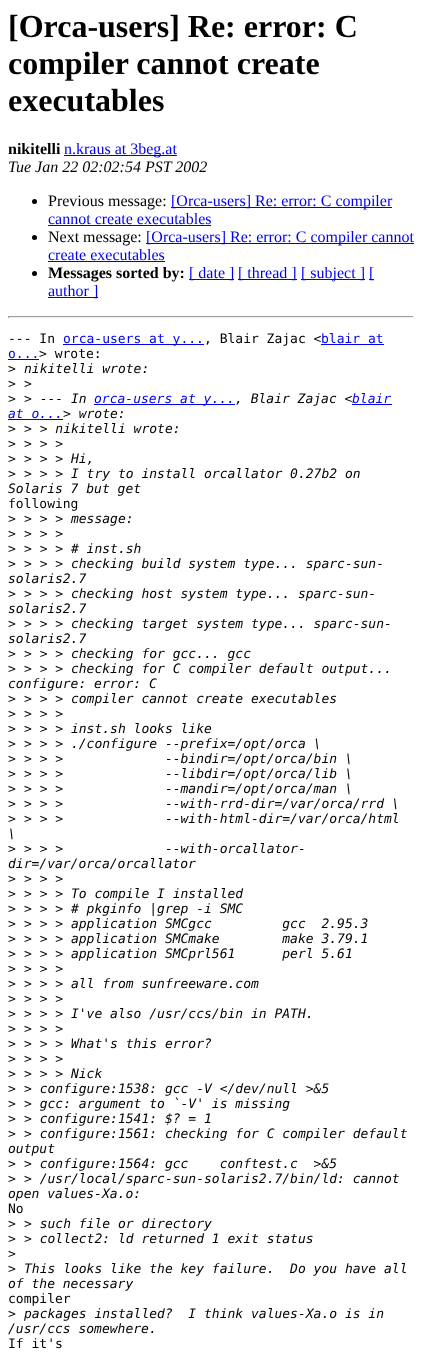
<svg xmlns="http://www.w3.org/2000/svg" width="422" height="1353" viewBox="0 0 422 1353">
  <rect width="100%" height="100%" fill="#ffffff"/>
  <text x="8" y="37" font-family="Liberation Serif" font-size="32" font-weight="bold" fill="#000000">[Orca-users] Re: error: C</text>
  <text x="8" y="74" font-family="Liberation Serif" font-size="32" font-weight="bold" fill="#000000">compiler cannot create</text>
  <text x="8" y="111" font-family="Liberation Serif" font-size="32" font-weight="bold" fill="#000000">executables</text>
  <text x="8" y="154" font-family="Liberation Serif" font-size="16" font-weight="bold" fill="#000000">nikitelli</text>
  <rect x="64" y="155" width="113" height="1" fill="#0000ee"/>
  <text x="64" y="154" font-family="Liberation Serif" font-size="16" fill="#0000ee">n.kraus at 3beg.at</text>
  <text x="8" y="172" font-family="Liberation Serif" font-size="16" font-style="italic" fill="#000000">Tue Jan 22 02:02:54 PST 2002</text>
  <circle cx="34.5" cy="201.5" r="2.5" fill="#000000"/>
  <text x="48" y="206" font-family="Liberation Serif" font-size="16" fill="#000000">Previous message:</text>
  <rect x="171" y="207" width="221" height="1" fill="#0000ee"/>
  <text x="171" y="206" font-family="Liberation Serif" font-size="16" fill="#0000ee">[Orca-users] Re: error: C compiler</text>
  <text x="48" y="224" font-family="Liberation Serif" font-size="16" fill="#0000ee">cannot create executables</text>
  <rect x="48" y="225" width="163" height="1" fill="#0000ee"/>
  <circle cx="34.5" cy="237.5" r="2.5" fill="#000000"/>
  <text x="48" y="242" font-family="Liberation Serif" font-size="16" fill="#000000">Next message:</text>
  <rect x="146" y="243" width="268" height="1" fill="#0000ee"/>
  <text x="146" y="242" font-family="Liberation Serif" font-size="16" fill="#0000ee">[Orca-users] Re: error: C compiler cannot</text>
  <text x="48" y="260" font-family="Liberation Serif" font-size="16" fill="#0000ee">create executables</text>
  <rect x="48" y="261" width="117" height="1" fill="#0000ee"/>
  <circle cx="34.5" cy="273.5" r="2.5" fill="#000000"/>
  <text x="48" y="278" font-family="Liberation Serif" font-size="16" font-weight="bold" fill="#000000">Messages sorted by:</text>
  <rect x="189" y="279" width="45" height="1" fill="#0000ee"/>
  <text x="189" y="278" font-family="Liberation Serif" font-size="16" fill="#0000ee">[ date ]</text>
  <rect x="238" y="279" width="59" height="1" fill="#0000ee"/>
  <text x="238" y="278" font-family="Liberation Serif" font-size="16" fill="#0000ee">[ thread ]</text>
  <rect x="301" y="279" width="64" height="1" fill="#0000ee"/>
  <text x="301" y="278" font-family="Liberation Serif" font-size="16" fill="#0000ee">[ subject ]</text>
  <rect x="369" y="279" width="5" height="1" fill="#0000ee"/>
  <text x="369" y="278" font-family="Liberation Serif" font-size="16" fill="#0000ee">[</text>
  <rect x="48" y="297" width="50" height="1" fill="#0000ee"/>
  <text x="48" y="296" font-family="Liberation Serif" font-size="16" fill="#0000ee">author ]</text>
  <rect x="8" y="316" width="406" height="1" fill="#9f9f9f"/>
  <rect x="413" y="316" width="1" height="2" fill="#eeeeee"/>
  <rect x="8" y="317" width="406" height="1" fill="#eeeeee"/>
  <rect x="8" y="316" width="1" height="2" fill="#9f9f9f"/>
  <text x="8" y="343" font-family="DejaVu Sans Mono" font-size="13" fill="#000000">--- In</text>
  <rect x="63" y="344" width="141" height="1" fill="#0000ee"/>
  <text x="63" y="343" font-family="DejaVu Sans Mono" font-size="13" fill="#0000ee">orca-users at y...</text>
  <text x="204" y="343" font-family="DejaVu Sans Mono" font-size="13" fill="#000000">, Blair Zajac &lt;</text>
  <text x="321" y="343" font-family="DejaVu Sans Mono" font-size="13" fill="#0000ee">blair at</text>
  <rect x="321" y="344" width="63" height="1" fill="#0000ee"/>
  <text x="8" y="358" font-family="DejaVu Sans Mono" font-size="13" fill="#0000ee">o...</text>
  <rect x="8" y="359" width="31" height="1" fill="#0000ee"/>
  <text x="39" y="358" font-family="DejaVu Sans Mono" font-size="13" fill="#000000">&gt; wrote:</text>
  <text x="8" y="373" font-family="DejaVu Sans Mono" font-size="13" fill="#000000">&gt;</text>
  <text x="24" y="373" font-family="DejaVu Sans Mono" font-size="13" font-style="italic" fill="#000000">nikitelli wrote:</text>
  <text x="8" y="388" font-family="DejaVu Sans Mono" font-size="13" fill="#000000">&gt;</text>
  <text x="24" y="388" font-family="DejaVu Sans Mono" font-size="13" font-style="italic" fill="#000000">&gt;</text>
  <text x="8" y="403" font-family="DejaVu Sans Mono" font-size="13" fill="#000000">&gt;</text>
  <text x="24" y="403" font-family="DejaVu Sans Mono" font-size="13" font-style="italic" fill="#000000">&gt; --- In</text>
  <rect x="94" y="404" width="141" height="1" fill="#0000ee"/>
  <text x="94" y="403" font-family="DejaVu Sans Mono" font-size="13" font-style="italic" fill="#0000ee">orca-users at y...</text>
  <text x="235" y="403" font-family="DejaVu Sans Mono" font-size="13" font-style="italic" fill="#000000">, Blair Zajac &lt;</text>
  <rect x="352" y="404" width="40" height="1" fill="#0000ee"/>
  <text x="352" y="403" font-family="DejaVu Sans Mono" font-size="13" font-style="italic" fill="#0000ee">blair</text>
  <text x="8" y="418" font-family="DejaVu Sans Mono" font-size="13" font-style="italic" fill="#0000ee">at o...</text>
  <rect x="8" y="419" width="55" height="1" fill="#0000ee"/>
  <text x="63" y="418" font-family="DejaVu Sans Mono" font-size="13" font-style="italic" fill="#000000">&gt; wrote:</text>
  <text x="8" y="433" font-family="DejaVu Sans Mono" font-size="13" fill="#000000">&gt;</text>
  <text x="24" y="433" font-family="DejaVu Sans Mono" font-size="13" font-style="italic" fill="#000000">&gt; &gt; nikitelli wrote:</text>
  <text x="8" y="448" font-family="DejaVu Sans Mono" font-size="13" fill="#000000">&gt;</text>
  <text x="24" y="448" font-family="DejaVu Sans Mono" font-size="13" font-style="italic" fill="#000000">&gt; &gt; &gt;</text>
  <text x="8" y="463" font-family="DejaVu Sans Mono" font-size="13" fill="#000000">&gt;</text>
  <text x="24" y="463" font-family="DejaVu Sans Mono" font-size="13" font-style="italic" fill="#000000">&gt; &gt; &gt; Hi,</text>
  <text x="8" y="478" font-family="DejaVu Sans Mono" font-size="13" fill="#000000">&gt;</text>
  <text x="24" y="478" font-family="DejaVu Sans Mono" font-size="13" font-style="italic" fill="#000000">&gt; &gt; &gt; I try to install orcallator 0.27b2 on</text>
  <text x="8" y="493" font-family="DejaVu Sans Mono" font-size="13" font-style="italic" fill="#000000">Solaris 7 but get</text>
  <text x="8" y="508" font-family="DejaVu Sans Mono" font-size="13" fill="#000000">following</text>
  <text x="8" y="523" font-family="DejaVu Sans Mono" font-size="13" fill="#000000">&gt;</text>
  <text x="24" y="523" font-family="DejaVu Sans Mono" font-size="13" font-style="italic" fill="#000000">&gt; &gt; &gt; message:</text>
  <text x="8" y="538" font-family="DejaVu Sans Mono" font-size="13" fill="#000000">&gt;</text>
  <text x="24" y="538" font-family="DejaVu Sans Mono" font-size="13" font-style="italic" fill="#000000">&gt; &gt; &gt;</text>
  <text x="8" y="553" font-family="DejaVu Sans Mono" font-size="13" fill="#000000">&gt;</text>
  <text x="24" y="553" font-family="DejaVu Sans Mono" font-size="13" font-style="italic" fill="#000000">&gt; &gt; &gt; # inst.sh</text>
  <text x="8" y="568" font-family="DejaVu Sans Mono" font-size="13" fill="#000000">&gt;</text>
  <text x="24" y="568" font-family="DejaVu Sans Mono" font-size="13" font-style="italic" fill="#000000">&gt; &gt; &gt; checking build system type... sparc-sun-</text>
  <text x="8" y="583" font-family="DejaVu Sans Mono" font-size="13" font-style="italic" fill="#000000">solaris2.7</text>
  <text x="8" y="598" font-family="DejaVu Sans Mono" font-size="13" fill="#000000">&gt;</text>
  <text x="24" y="598" font-family="DejaVu Sans Mono" font-size="13" font-style="italic" fill="#000000">&gt; &gt; &gt; checking host system type... sparc-sun-</text>
  <text x="8" y="613" font-family="DejaVu Sans Mono" font-size="13" font-style="italic" fill="#000000">solaris2.7</text>
  <text x="8" y="628" font-family="DejaVu Sans Mono" font-size="13" fill="#000000">&gt;</text>
  <text x="24" y="628" font-family="DejaVu Sans Mono" font-size="13" font-style="italic" fill="#000000">&gt; &gt; &gt; checking target system type... sparc-sun-</text>
  <text x="8" y="643" font-family="DejaVu Sans Mono" font-size="13" font-style="italic" fill="#000000">solaris2.7</text>
  <text x="8" y="658" font-family="DejaVu Sans Mono" font-size="13" fill="#000000">&gt;</text>
  <text x="24" y="658" font-family="DejaVu Sans Mono" font-size="13" font-style="italic" fill="#000000">&gt; &gt; &gt; checking for gcc... gcc</text>
  <text x="8" y="673" font-family="DejaVu Sans Mono" font-size="13" fill="#000000">&gt;</text>
  <text x="24" y="673" font-family="DejaVu Sans Mono" font-size="13" font-style="italic" fill="#000000">&gt; &gt; &gt; checking for C compiler default output...</text>
  <text x="8" y="688" font-family="DejaVu Sans Mono" font-size="13" font-style="italic" fill="#000000">configure: error: C</text>
  <text x="8" y="703" font-family="DejaVu Sans Mono" font-size="13" fill="#000000">&gt;</text>
  <text x="24" y="703" font-family="DejaVu Sans Mono" font-size="13" font-style="italic" fill="#000000">&gt; &gt; &gt; compiler cannot create executables</text>
  <text x="8" y="718" font-family="DejaVu Sans Mono" font-size="13" fill="#000000">&gt;</text>
  <text x="24" y="718" font-family="DejaVu Sans Mono" font-size="13" font-style="italic" fill="#000000">&gt; &gt; &gt;</text>
  <text x="8" y="733" font-family="DejaVu Sans Mono" font-size="13" fill="#000000">&gt;</text>
  <text x="24" y="733" font-family="DejaVu Sans Mono" font-size="13" font-style="italic" fill="#000000">&gt; &gt; &gt; inst.sh looks like</text>
  <text x="8" y="748" font-family="DejaVu Sans Mono" font-size="13" fill="#000000">&gt;</text>
  <text x="24" y="748" font-family="DejaVu Sans Mono" font-size="13" font-style="italic" fill="#000000">&gt; &gt; &gt; ./configure --prefix=/opt/orca \</text>
  <text x="8" y="763" font-family="DejaVu Sans Mono" font-size="13" fill="#000000">&gt;</text>
  <text x="24" y="763" font-family="DejaVu Sans Mono" font-size="13" font-style="italic" fill="#000000" xml:space="preserve">&gt; &gt; &gt;             --bindir=/opt/orca/bin \</text>
  <text x="8" y="778" font-family="DejaVu Sans Mono" font-size="13" fill="#000000">&gt;</text>
  <text x="24" y="778" font-family="DejaVu Sans Mono" font-size="13" font-style="italic" fill="#000000" xml:space="preserve">&gt; &gt; &gt;             --libdir=/opt/orca/lib \</text>
  <text x="8" y="793" font-family="DejaVu Sans Mono" font-size="13" fill="#000000">&gt;</text>
  <text x="24" y="793" font-family="DejaVu Sans Mono" font-size="13" font-style="italic" fill="#000000" xml:space="preserve">&gt; &gt; &gt;             --mandir=/opt/orca/man \</text>
  <text x="8" y="808" font-family="DejaVu Sans Mono" font-size="13" fill="#000000">&gt;</text>
  <text x="24" y="808" font-family="DejaVu Sans Mono" font-size="13" font-style="italic" fill="#000000" xml:space="preserve">&gt; &gt; &gt;             --with-rrd-dir=/var/orca/rrd \</text>
  <text x="8" y="823" font-family="DejaVu Sans Mono" font-size="13" fill="#000000">&gt;</text>
  <text x="24" y="823" font-family="DejaVu Sans Mono" font-size="13" font-style="italic" fill="#000000" xml:space="preserve">&gt; &gt; &gt;             --with-html-dir=/var/orca/html</text>
  <text x="8" y="838" font-family="DejaVu Sans Mono" font-size="13" font-style="italic" fill="#000000">\</text>
  <text x="8" y="853" font-family="DejaVu Sans Mono" font-size="13" fill="#000000">&gt;</text>
  <text x="24" y="853" font-family="DejaVu Sans Mono" font-size="13" font-style="italic" fill="#000000" xml:space="preserve">&gt; &gt; &gt;             --with-orcallator-</text>
  <text x="8" y="868" font-family="DejaVu Sans Mono" font-size="13" font-style="italic" fill="#000000">dir=/var/orca/orcallator</text>
  <text x="8" y="883" font-family="DejaVu Sans Mono" font-size="13" fill="#000000">&gt;</text>
  <text x="24" y="883" font-family="DejaVu Sans Mono" font-size="13" font-style="italic" fill="#000000">&gt; &gt; &gt;</text>
  <text x="8" y="898" font-family="DejaVu Sans Mono" font-size="13" fill="#000000">&gt;</text>
  <text x="24" y="898" font-family="DejaVu Sans Mono" font-size="13" font-style="italic" fill="#000000">&gt; &gt; &gt; To compile I installed</text>
  <text x="8" y="913" font-family="DejaVu Sans Mono" font-size="13" fill="#000000">&gt;</text>
  <text x="24" y="913" font-family="DejaVu Sans Mono" font-size="13" font-style="italic" fill="#000000">&gt; &gt; &gt; # pkginfo |grep -i SMC</text>
  <text x="8" y="928" font-family="DejaVu Sans Mono" font-size="13" fill="#000000">&gt;</text>
  <text x="24" y="928" font-family="DejaVu Sans Mono" font-size="13" font-style="italic" fill="#000000" xml:space="preserve">&gt; &gt; &gt; application SMCgcc         gcc  2.95.3</text>
  <text x="8" y="943" font-family="DejaVu Sans Mono" font-size="13" fill="#000000">&gt;</text>
  <text x="24" y="943" font-family="DejaVu Sans Mono" font-size="13" font-style="italic" fill="#000000" xml:space="preserve">&gt; &gt; &gt; application SMCmake        make 3.79.1</text>
  <text x="8" y="958" font-family="DejaVu Sans Mono" font-size="13" fill="#000000">&gt;</text>
  <text x="24" y="958" font-family="DejaVu Sans Mono" font-size="13" font-style="italic" fill="#000000" xml:space="preserve">&gt; &gt; &gt; application SMCprl561      perl 5.61</text>
  <text x="8" y="973" font-family="DejaVu Sans Mono" font-size="13" fill="#000000">&gt;</text>
  <text x="24" y="973" font-family="DejaVu Sans Mono" font-size="13" font-style="italic" fill="#000000">&gt; &gt; &gt;</text>
  <text x="8" y="988" font-family="DejaVu Sans Mono" font-size="13" fill="#000000">&gt;</text>
  <text x="24" y="988" font-family="DejaVu Sans Mono" font-size="13" font-style="italic" fill="#000000">&gt; &gt; &gt; all from sunfreeware.com</text>
  <text x="8" y="1003" font-family="DejaVu Sans Mono" font-size="13" fill="#000000">&gt;</text>
  <text x="24" y="1003" font-family="DejaVu Sans Mono" font-size="13" font-style="italic" fill="#000000">&gt; &gt; &gt;</text>
  <text x="8" y="1018" font-family="DejaVu Sans Mono" font-size="13" fill="#000000">&gt;</text>
  <text x="24" y="1018" font-family="DejaVu Sans Mono" font-size="13" font-style="italic" fill="#000000">&gt; &gt; &gt; I've also /usr/ccs/bin in PATH.</text>
  <text x="8" y="1033" font-family="DejaVu Sans Mono" font-size="13" fill="#000000">&gt;</text>
  <text x="24" y="1033" font-family="DejaVu Sans Mono" font-size="13" font-style="italic" fill="#000000">&gt; &gt; &gt;</text>
  <text x="8" y="1048" font-family="DejaVu Sans Mono" font-size="13" fill="#000000">&gt;</text>
  <text x="24" y="1048" font-family="DejaVu Sans Mono" font-size="13" font-style="italic" fill="#000000">&gt; &gt; &gt; What's this error?</text>
  <text x="8" y="1063" font-family="DejaVu Sans Mono" font-size="13" fill="#000000">&gt;</text>
  <text x="24" y="1063" font-family="DejaVu Sans Mono" font-size="13" font-style="italic" fill="#000000">&gt; &gt; &gt;</text>
  <text x="8" y="1078" font-family="DejaVu Sans Mono" font-size="13" fill="#000000">&gt;</text>
  <text x="24" y="1078" font-family="DejaVu Sans Mono" font-size="13" font-style="italic" fill="#000000">&gt; &gt; &gt; Nick</text>
  <text x="8" y="1093" font-family="DejaVu Sans Mono" font-size="13" fill="#000000">&gt;</text>
  <text x="24" y="1093" font-family="DejaVu Sans Mono" font-size="13" font-style="italic" fill="#000000">&gt; configure:1538: gcc -V &lt;/dev/null &gt;&amp;5</text>
  <text x="8" y="1108" font-family="DejaVu Sans Mono" font-size="13" fill="#000000">&gt;</text>
  <text x="24" y="1108" font-family="DejaVu Sans Mono" font-size="13" font-style="italic" fill="#000000">&gt; gcc: argument to `-V' is missing</text>
  <text x="8" y="1123" font-family="DejaVu Sans Mono" font-size="13" fill="#000000">&gt;</text>
  <text x="24" y="1123" font-family="DejaVu Sans Mono" font-size="13" font-style="italic" fill="#000000">&gt; configure:1541: $? = 1</text>
  <text x="8" y="1138" font-family="DejaVu Sans Mono" font-size="13" fill="#000000">&gt;</text>
  <text x="24" y="1138" font-family="DejaVu Sans Mono" font-size="13" font-style="italic" fill="#000000">&gt; configure:1561: checking for C compiler default</text>
  <text x="8" y="1153" font-family="DejaVu Sans Mono" font-size="13" font-style="italic" fill="#000000">output</text>
  <text x="8" y="1168" font-family="DejaVu Sans Mono" font-size="13" fill="#000000">&gt;</text>
  <text x="24" y="1168" font-family="DejaVu Sans Mono" font-size="13" font-style="italic" fill="#000000" xml:space="preserve">&gt; configure:1564: gcc    conftest.c  &gt;&amp;5</text>
  <text x="8" y="1183" font-family="DejaVu Sans Mono" font-size="13" fill="#000000">&gt;</text>
  <text x="24" y="1183" font-family="DejaVu Sans Mono" font-size="13" font-style="italic" fill="#000000">&gt; /usr/local/sparc-sun-solaris2.7/bin/ld: cannot</text>
  <text x="8" y="1198" font-family="DejaVu Sans Mono" font-size="13" font-style="italic" fill="#000000">open values-Xa.o:</text>
  <text x="8" y="1213" font-family="DejaVu Sans Mono" font-size="13" fill="#000000">No</text>
  <text x="8" y="1228" font-family="DejaVu Sans Mono" font-size="13" fill="#000000">&gt;</text>
  <text x="24" y="1228" font-family="DejaVu Sans Mono" font-size="13" font-style="italic" fill="#000000">&gt; such file or directory</text>
  <text x="8" y="1243" font-family="DejaVu Sans Mono" font-size="13" fill="#000000">&gt;</text>
  <text x="24" y="1243" font-family="DejaVu Sans Mono" font-size="13" font-style="italic" fill="#000000">&gt; collect2: ld returned 1 exit status</text>
  <text x="8" y="1258" font-family="DejaVu Sans Mono" font-size="13" fill="#000000">&gt;</text>
  <text x="8" y="1273" font-family="DejaVu Sans Mono" font-size="13" fill="#000000">&gt;</text>
  <text x="24" y="1273" font-family="DejaVu Sans Mono" font-size="13" font-style="italic" fill="#000000" xml:space="preserve">This looks like the key failure.  Do you have all</text>
  <text x="8" y="1288" font-family="DejaVu Sans Mono" font-size="13" font-style="italic" fill="#000000">of the necessary</text>
  <text x="8" y="1303" font-family="DejaVu Sans Mono" font-size="13" fill="#000000">compiler</text>
  <text x="8" y="1318" font-family="DejaVu Sans Mono" font-size="13" fill="#000000">&gt;</text>
  <text x="24" y="1318" font-family="DejaVu Sans Mono" font-size="13" font-style="italic" fill="#000000" xml:space="preserve">packages installed?  I think values-Xa.o is in</text>
  <text x="8" y="1333" font-family="DejaVu Sans Mono" font-size="13" font-style="italic" fill="#000000">/usr/ccs somewhere.</text>
  <text x="8" y="1348" font-family="DejaVu Sans Mono" font-size="13" fill="#000000">If it's</text>
</svg>
